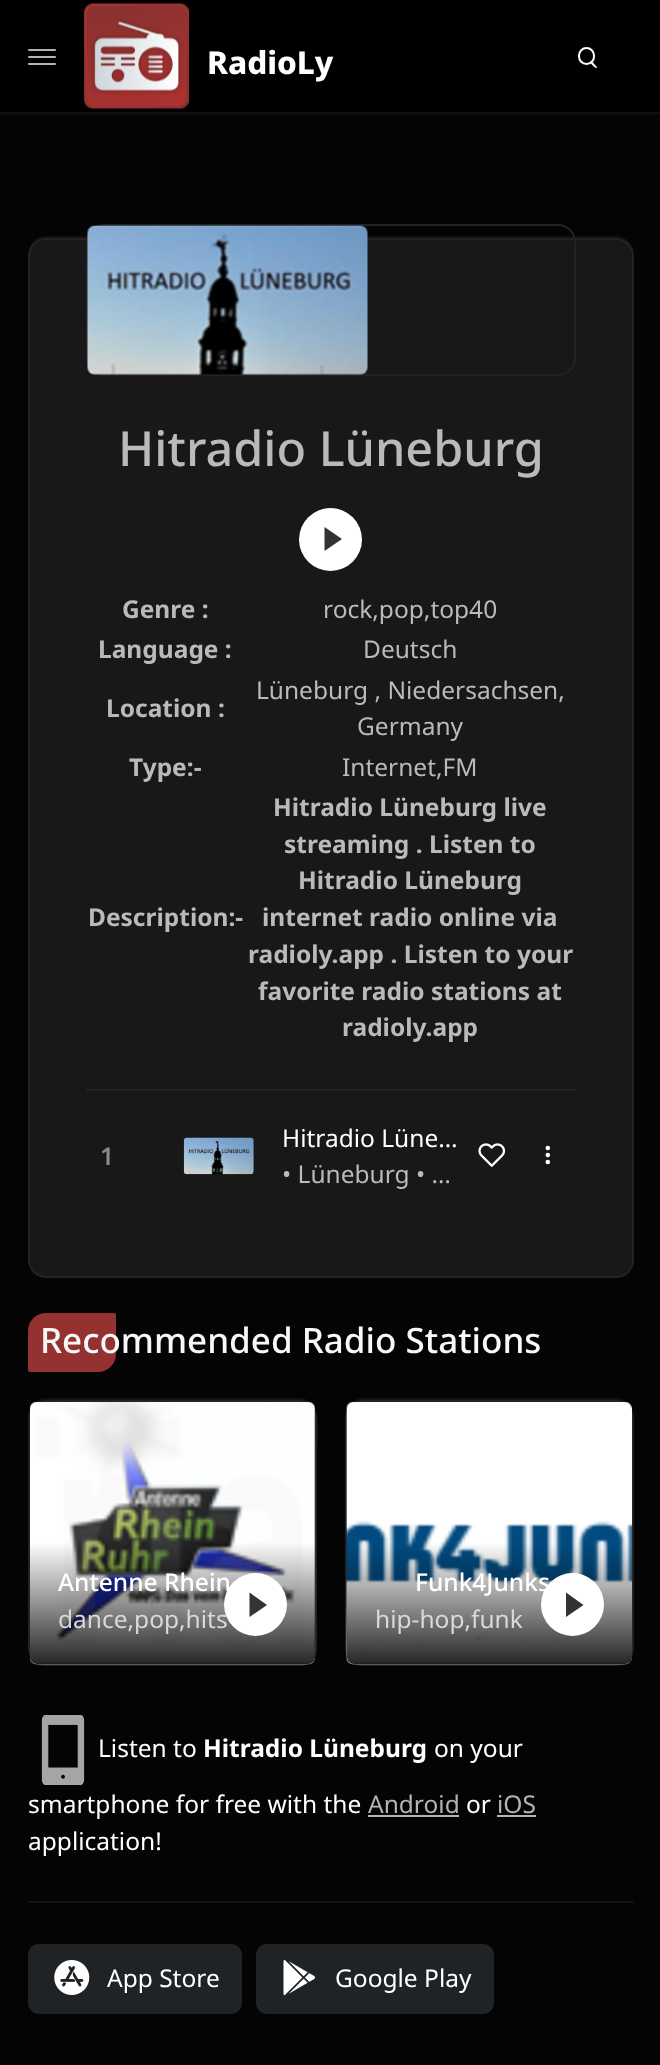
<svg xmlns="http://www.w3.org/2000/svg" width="660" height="2065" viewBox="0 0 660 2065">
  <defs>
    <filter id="blur1" x="-50%" y="-200%" width="200%" height="500%"><feGaussianBlur stdDeviation="1"/></filter>
    <linearGradient id="g1" gradientUnits="userSpaceOnUse" x1="172" y1="1542" x2="172" y2="1664"><stop offset="0" stop-color="#000000" stop-opacity="0"/><stop offset="1" stop-color="#000000" stop-opacity="0.85"/></linearGradient>
    <linearGradient id="g2" gradientUnits="userSpaceOnUse" x1="489" y1="1542" x2="489" y2="1664"><stop offset="0" stop-color="#000000" stop-opacity="0"/><stop offset="1" stop-color="#000000" stop-opacity="0.85"/></linearGradient>
  </defs>
  <rect width="100%" height="100%" fill="#040404"/>
  <rect x="0" y="2" width="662" height="112" fill="#828c96" fill-opacity="0.1" filter="url(#blur1)"/>
  <rect x="0" y="0" width="660" height="112" fill="#000000"/>
  <rect x="28" y="49" width="28" height="2" rx="1" fill="#b3b3b3"/>
  <rect x="28" y="56" width="28" height="2" rx="1" fill="#b3b3b3"/>
  <rect x="28" y="63" width="28" height="2" rx="1" fill="#b3b3b3"/>
  <image x="84" y="3" width="105" height="106" href="img1.png"/>
  <text x="207" y="74" font-family="Noto Sans" font-size="31.5" font-weight="800" fill="#ffffff">RadioLy</text>
  <rect x="579" y="48" width="15" height="16" rx="7.5" fill="none" stroke="#ffffff" stroke-width="2"/>
  <path d="M592 61.5L596 66C598 68 596.5 69 594.5 67C594 66.5 589 62.5 590.5 61.5Z" fill="#ffffff"/>
  <path d="M46 236C35 236 28 245 28 256C28 246 36 238 46 238H616C626 238 634 246 634 256L633 1263L634 1258V254C634 244 626 236 616 236Z" fill="#101112"/>
  <rect x="29" y="239" width="604" height="1038" rx="17" fill="#191818" stroke="#232323" stroke-width="2"/>
  <rect x="87" y="225" width="488" height="150" rx="17" fill="none" stroke="#232323" stroke-width="2"/>
  <image x="87" y="225" width="281" height="150" href="img2.png"/>
  <text x="118" y="466" font-family="Noto Sans" font-size="48.5" font-weight="500" fill="#bababa">Hitradio Lüneburg</text>
  <circle cx="330.5" cy="539.5" r="31.5" fill="#ffffff"/>
  <path d="M324.5 551V527L342 539Z" fill="#333333"/>
  <text x="122" y="618" font-family="Noto Sans" font-size="24.5" font-weight="bold" fill="#bababa">Genre :</text>
  <text x="323" y="618" font-family="Noto Sans" font-size="24.5" fill="#bababa">rock,pop,top40</text>
  <text x="98" y="658" font-family="Noto Sans" font-size="24.5" font-weight="bold" fill="#bababa">Language :</text>
  <text x="363" y="658" font-family="Noto Sans" font-size="24.5" fill="#bababa">Deutsch</text>
  <text x="106" y="717" font-family="Noto Sans" font-size="24.5" font-weight="bold" fill="#bababa">Location :</text>
  <text x="256" y="699" font-family="Noto Sans" font-size="24.5" fill="#bababa">Lüneburg , Niedersachsen,</text>
  <text x="357" y="735" font-family="Noto Sans" font-size="24.5" fill="#bababa">Germany</text>
  <text x="129" y="776" font-family="Noto Sans" font-size="24.5" font-weight="bold" fill="#bababa">Type:-</text>
  <text x="342" y="776" font-family="Noto Sans" font-size="24.5" fill="#bababa">Internet,FM</text>
  <text x="88" y="926" font-family="Noto Sans" font-size="24.5" font-weight="bold" fill="#bababa">Description:-</text>
  <text x="273" y="816" font-family="Noto Sans" font-size="24.5" font-weight="bold" fill="#bababa">Hitradio Lüneburg live</text>
  <text x="284" y="853" font-family="Noto Sans" font-size="24.5" font-weight="bold" fill="#bababa">streaming . Listen to</text>
  <text x="298" y="889" font-family="Noto Sans" font-size="24.5" font-weight="bold" fill="#bababa">Hitradio Lüneburg</text>
  <text x="262" y="926" font-family="Noto Sans" font-size="24.5" font-weight="bold" fill="#bababa">internet radio online via</text>
  <text x="248" y="963" font-family="Noto Sans" font-size="24.5" font-weight="bold" fill="#bababa">radioly.app . Listen to your</text>
  <text x="258" y="1000" font-family="Noto Sans" font-size="24.5" font-weight="bold" fill="#bababa">favorite radio stations at</text>
  <text x="342" y="1036" font-family="Noto Sans" font-size="24.5" font-weight="bold" fill="#bababa">radioly.app</text>
  <rect x="86" y="1089" width="490" height="2" fill="#232324"/>
  <text x="100" y="1165" font-family="Noto Sans" font-size="24.5" font-weight="600" fill="#8c8c8c">1</text>
  <image x="183" y="1137" width="71" height="38" href="img3.png"/>
  <text x="282" y="1147" font-family="Noto Sans" font-size="24.5" fill="#ffffff">Hitradio Lüne…</text>
  <text x="282" y="1183" font-family="Noto Sans" font-size="24.5" fill="#bababa">• Lüneburg • …</text>
  <image x="478" y="1143" width="28" height="24" href="img4.png"/>
  <circle cx="547.8" cy="1155" r="2.3" fill="#ffffff"/>
  <circle cx="547.8" cy="1148" r="2.3" fill="#ffffff"/>
  <circle cx="547.8" cy="1162" r="2.3" fill="#ffffff"/>
  <path d="M46 1313H114C115 1313 116 1314 116 1315V1354C116 1364 108 1372 98 1372H30C29 1372 28 1371 28 1370V1331C28 1321 36 1313 46 1313Z" fill="#933230"/>
  <text x="40" y="1353" font-family="Noto Sans" font-size="35" font-weight="500" fill="#f8f8f8">Recommended Radio Stations</text>
  <path d="M46 1398C35 1398 28 1407 28 1418C28 1408 36 1400 46 1400H299C309 1400 317 1408 317 1418V1649V1454C317 1442 326 1398 299 1398Z" fill="#101112"/>
  <rect x="29" y="1401" width="287" height="264" rx="17" fill="none" stroke="#232323" stroke-width="2"/>
  <image x="30" y="1402" width="286" height="263" href="img5.png"/>
  <path d="M30 1542H315V1657C315 1661 312 1664 308 1664H37C33 1664 30 1661 30 1657Z" fill="url(#g1)"/>
  <text x="58" y="1628" font-family="Noto Sans" font-size="24.5" fill="#d9d9da">dance,pop,hits</text>
  <circle cx="255.5" cy="1604.5" r="31.5" fill="#ffffff"/>
  <path d="M249.5 1617V1592.5L267 1605Z" fill="#333333"/>
  <text x="58" y="1591" font-family="Noto Sans" font-size="24.5" font-weight="500" fill="#ffffff">Antenne Rhein</text>
  <path d="M363 1398C354 1398 346 1405 345 1414C347 1406 354 1400 362 1400H616C626 1400 634 1408 634 1418L633 1651L634 1646V1416C634 1406 626 1398 616 1398Z" fill="#101112"/>
  <rect x="346" y="1401" width="287" height="264" rx="17" fill="none" stroke="#232323" stroke-width="2"/>
  <image x="346" y="1402" width="286" height="263" href="img6.png"/>
  <path d="M347 1542H632V1657C632 1661 629 1664 625 1664H354C350 1664 347 1661 347 1657Z" fill="url(#g2)"/>
  <circle cx="572.5" cy="1604.5" r="31.5" fill="#ffffff"/>
  <path d="M566 1617V1592.5L583.5 1605Z" fill="#333333"/>
  <text x="415" y="1591" font-family="Noto Sans" font-size="24.5" font-weight="500" fill="#ffffff">Funk4Junks</text>
  <text x="375" y="1628" font-family="Noto Sans" font-size="24.5" fill="#d9d9da">hip-hop,funk</text>
  <image x="41" y="1715" width="44" height="70" href="img7.png"/>
  <text x="98" y="1757" font-family="Noto Sans" font-size="24.5" fill="#ffffff">Listen to</text>
  <text x="203" y="1757" font-family="Noto Sans" font-size="24.5" font-weight="bold" fill="#ffffff">Hitradio Lüneburg</text>
  <text x="434" y="1757" font-family="Noto Sans" font-size="24.5" fill="#ffffff">on your</text>
  <text x="28" y="1813" font-family="Noto Sans" font-size="24.5" fill="#ffffff">smartphone for free with the</text>
  <text x="368" y="1813" font-family="Noto Sans" font-size="24.5" fill="#b4b4b4">Android</text>
  <rect x="368" y="1815" width="91" height="2" fill="#b4b4b4"/>
  <text x="466" y="1813" font-family="Noto Sans" font-size="24.5" fill="#ffffff">or</text>
  <text x="497" y="1813" font-family="Noto Sans" font-size="24.5" fill="#b4b4b4">iOS</text>
  <rect x="497" y="1815" width="39" height="2" fill="#b4b4b4"/>
  <text x="28" y="1850" font-family="Noto Sans" font-size="24.5" fill="#ffffff">application!</text>
  <rect x="28" y="1901" width="606" height="2" fill="#111213"/>
  <rect x="28" y="1944" width="214" height="70" rx="11" fill="#202326"/>
  <image x="54" y="1960" width="36" height="35" href="img8.png"/>
  <text x="107" y="1987" font-family="Noto Sans" font-size="24.5" fill="#ffffff">App Store</text>
  <rect x="256" y="1944" width="238" height="70" rx="11" fill="#202326"/>
  <image x="283" y="1959" width="32" height="37" href="img9.png"/>
  <text x="335" y="1987" font-family="Noto Sans" font-size="24.5" fill="#ffffff">Google Play</text>
</svg>
